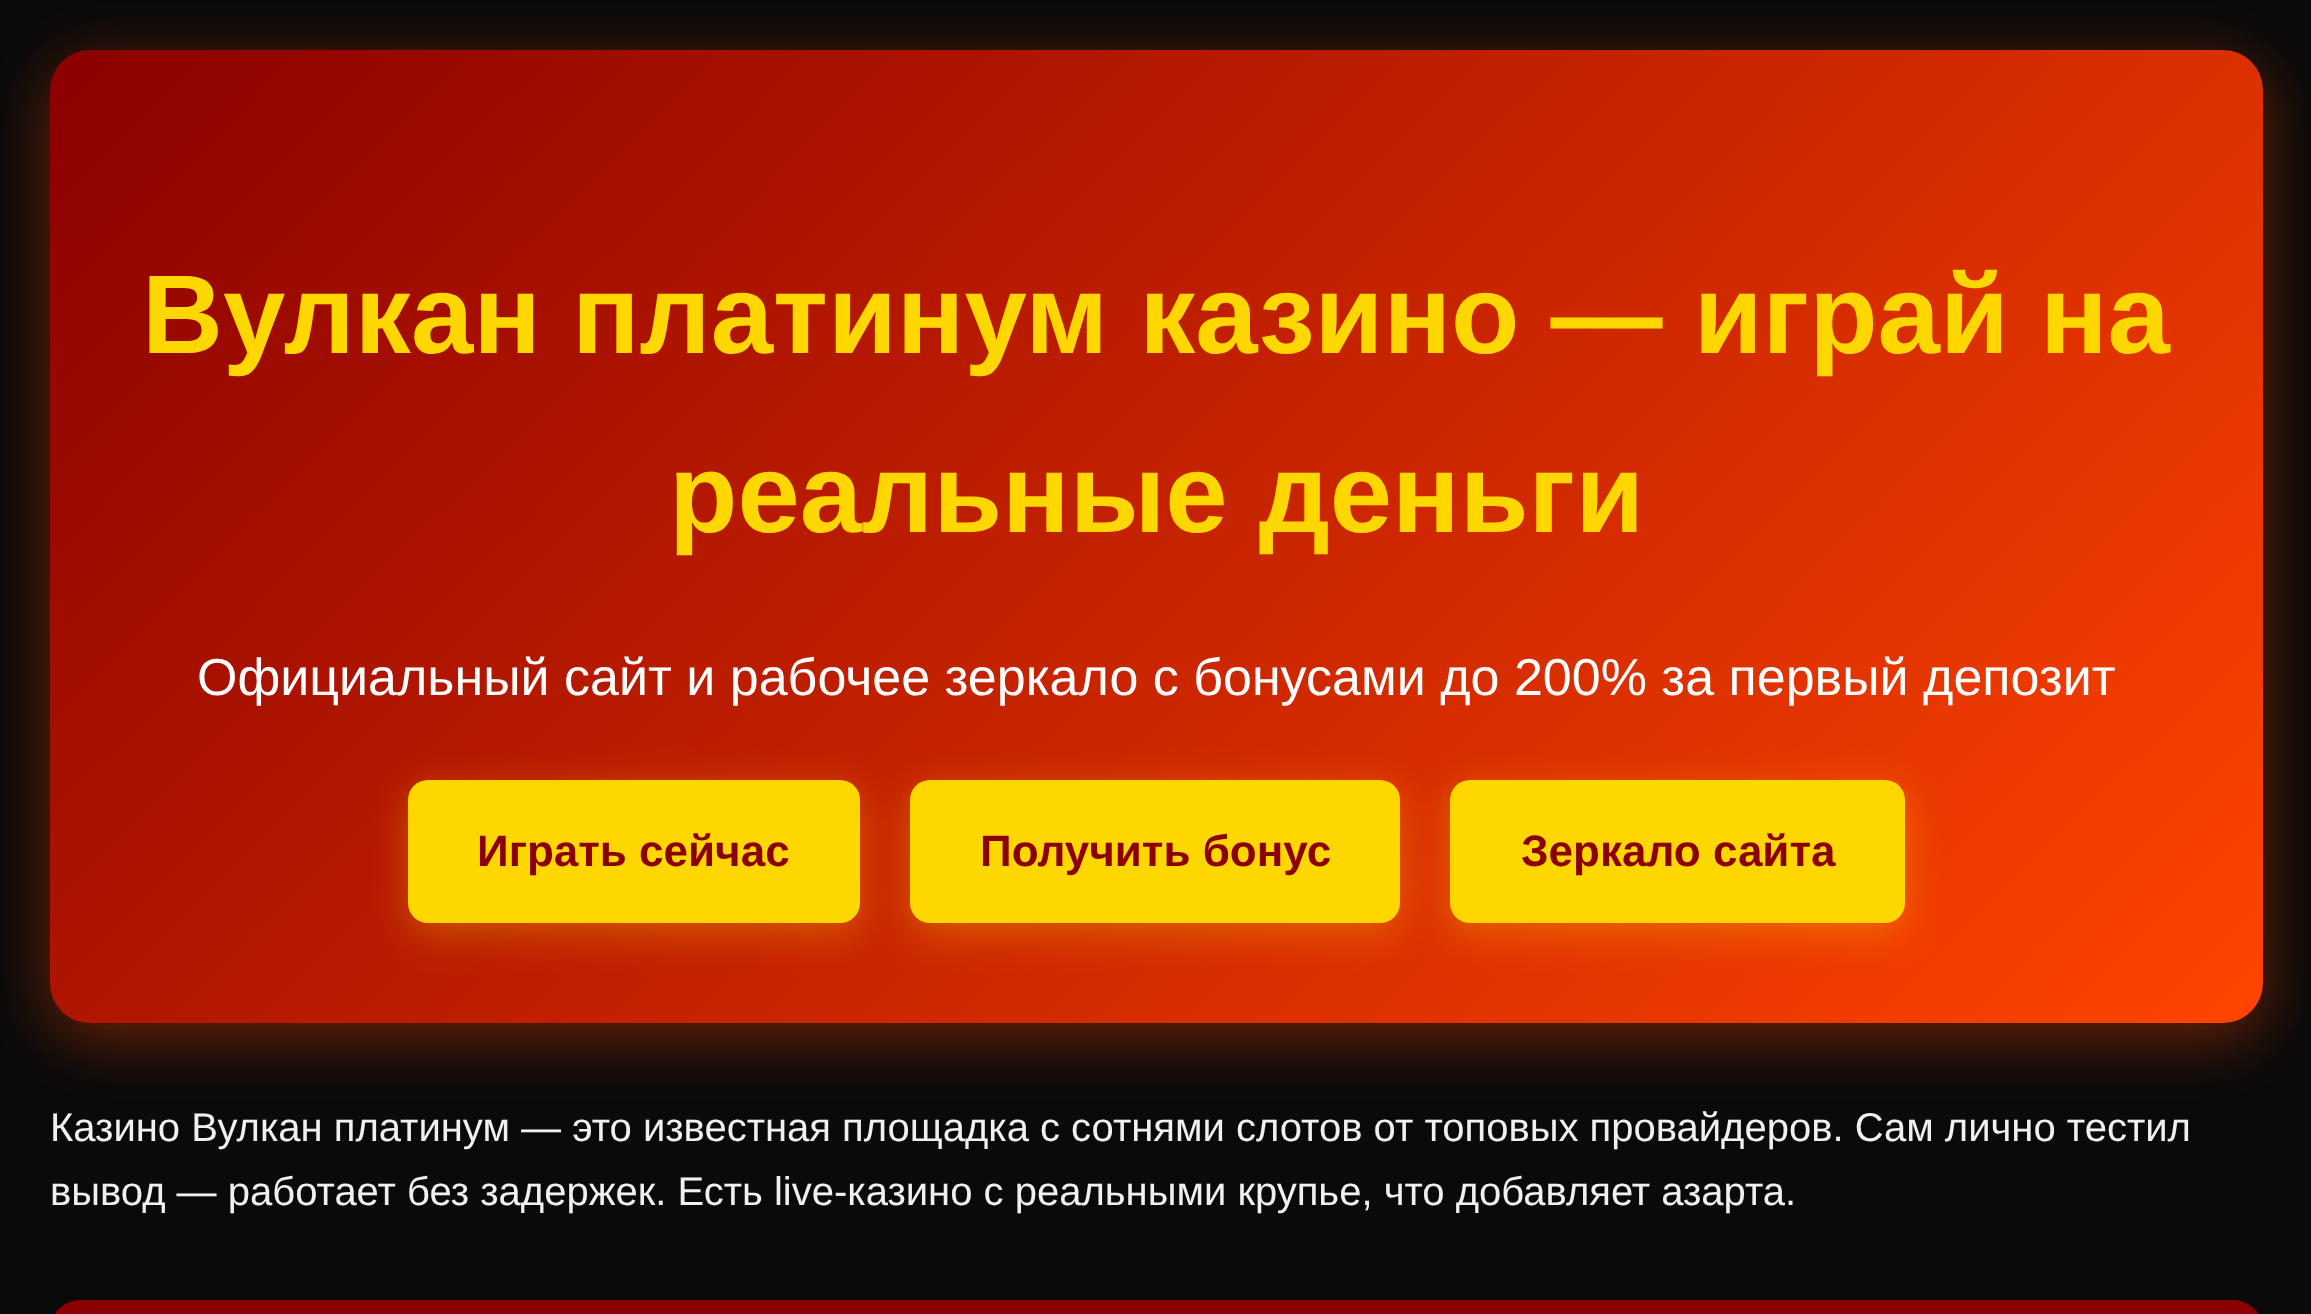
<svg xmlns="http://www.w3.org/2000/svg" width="2311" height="1314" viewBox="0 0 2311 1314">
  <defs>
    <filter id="blur1" x="-50%" y="-200%" width="200%" height="500%"><feGaussianBlur stdDeviation="31"/></filter>
    <linearGradient id="g1" gradientUnits="userSpaceOnUse" x1="360" y1="-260" x2="1953" y2="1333"><stop offset="0" stop-color="#8b0000"/><stop offset="1" stop-color="#ff4500"/></linearGradient>
    <filter id="blur2" x="-50%" y="-200%" width="200%" height="500%"><feGaussianBlur stdDeviation="19"/></filter>
  </defs>
  <rect width="100%" height="100%" fill="#0a0a0a"/>
  <rect x="50" y="65" width="2213" height="973" rx="40" fill="#ff4500" fill-opacity="0.4" filter="url(#blur1)"/>
  <rect x="50" y="50" width="2213" height="973" rx="40" fill="url(#g1)"/>
  <text x="142" y="353" font-family="Liberation Sans" font-size="112" font-weight="bold" fill="#ffd700">Вулкан платинум казино — играй на</text>
  <text x="669" y="532" font-family="Liberation Sans" font-size="112" font-weight="bold" fill="#ffd700">реальные деньги</text>
  <text x="197" y="695" font-family="Liberation Sans" font-size="52" fill="#ffffff">Официальный сайт и рабочее зеркало с бонусами до 200% за первый депозит</text>
  <rect x="408" y="790" width="452" height="143" rx="20" fill="#ffd700" fill-opacity="0.3" filter="url(#blur2)"/>
  <rect x="408" y="780" width="452" height="143" rx="20" fill="#ffd700"/>
  <text x="477" y="866" font-family="Liberation Sans" font-size="44" font-weight="bold" fill="#8b0000">Играть сейчас</text>
  <rect x="910" y="790" width="490" height="143" rx="20" fill="#ffd700" fill-opacity="0.3" filter="url(#blur2)"/>
  <rect x="910" y="780" width="490" height="143" rx="20" fill="#ffd700"/>
  <text x="980" y="866" font-family="Liberation Sans" font-size="44" font-weight="bold" fill="#8b0000">Получить бонус</text>
  <rect x="1450" y="790" width="455" height="143" rx="20" fill="#ffd700" fill-opacity="0.3" filter="url(#blur2)"/>
  <rect x="1450" y="780" width="455" height="143" rx="20" fill="#ffd700"/>
  <text x="1521" y="866" font-family="Liberation Sans" font-size="44" font-weight="bold" fill="#8b0000">Зеркало сайта</text>
  <text x="50" y="1141" font-family="Liberation Sans" font-size="40" fill="#f0f0f0">Казино Вулкан платинум — это известная площадка с сотнями слотов от топовых провайдеров. Сам лично тестил</text>
  <text x="50" y="1205" font-family="Liberation Sans" font-size="40" fill="#f0f0f0">вывод — работает без задержек. Есть live-казино с реальными крупье, что добавляет азарта.</text>
  <path d="M80 1300H950V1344H50V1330C50 1313.5 63.5 1300 80 1300Z" fill="#8b0000"/>
  <path d="M950 1300H2233C2249.5 1300 2263 1313.5 2263 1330V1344H950Z" fill="#8b0000"/>
</svg>
